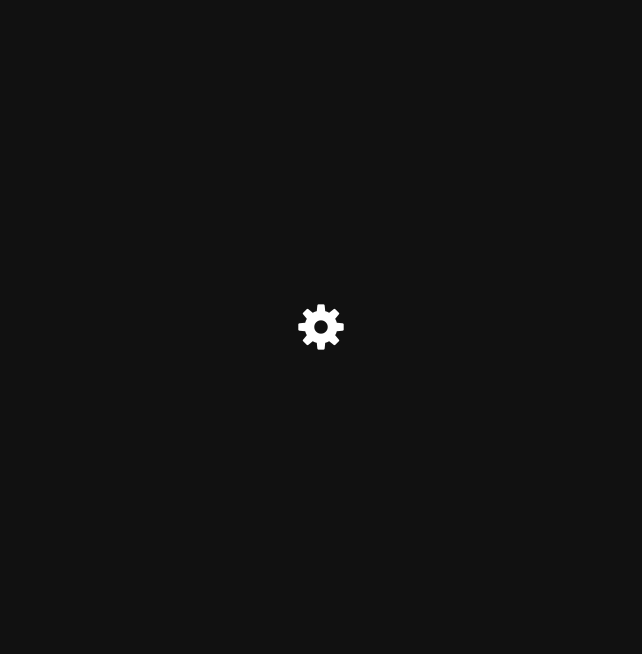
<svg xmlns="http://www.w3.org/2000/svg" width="642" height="654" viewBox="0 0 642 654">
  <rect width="100%" height="100%" fill="#111111"/>
  <image x="298" y="304" width="46" height="46" href="img1.png"/>
</svg>
